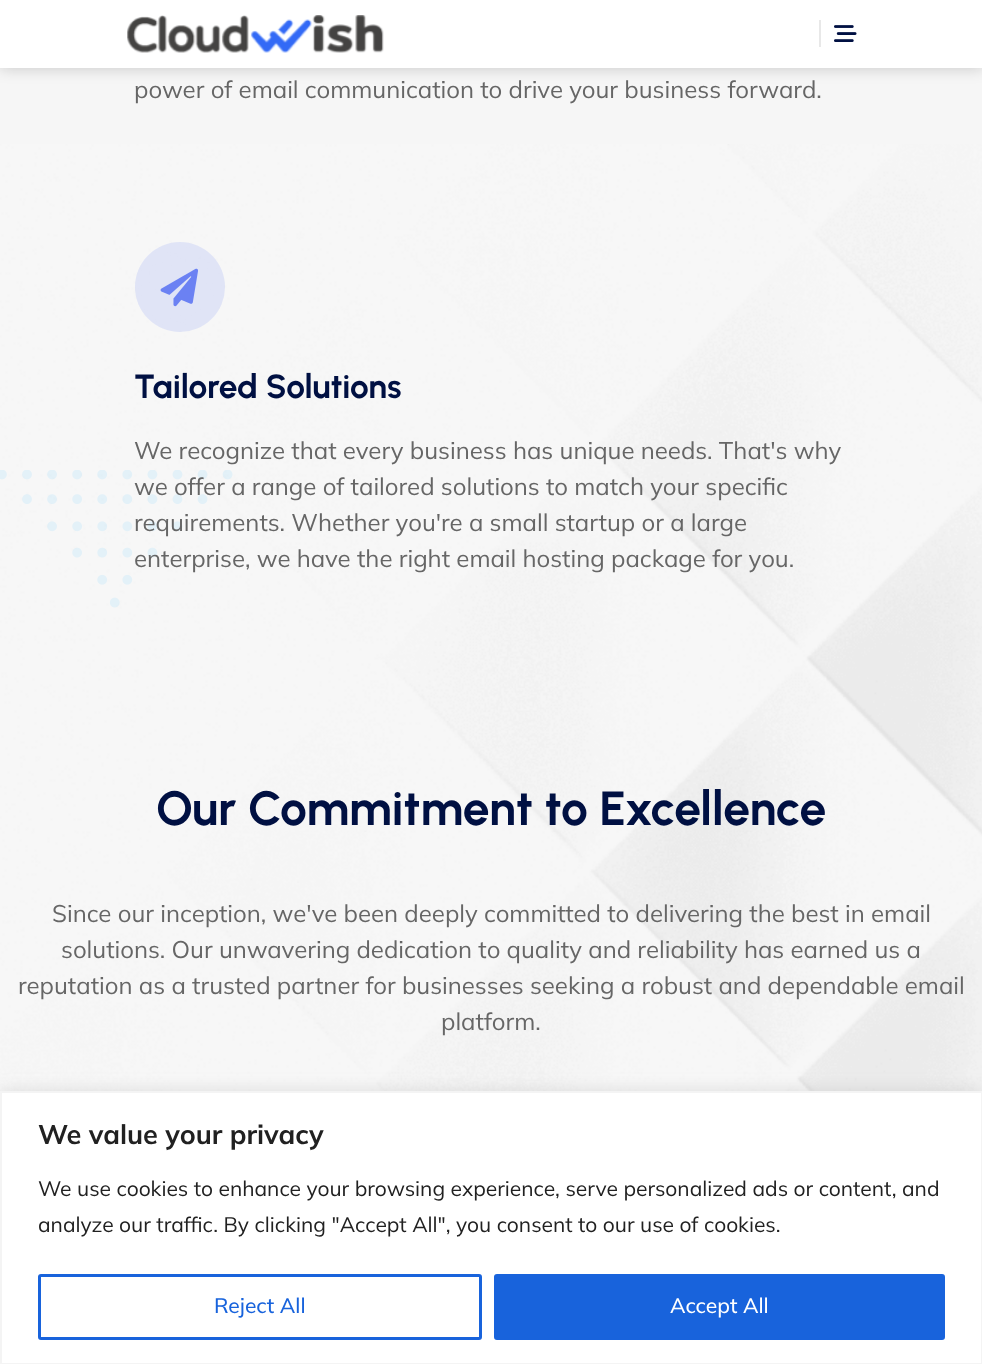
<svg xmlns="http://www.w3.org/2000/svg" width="982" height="1364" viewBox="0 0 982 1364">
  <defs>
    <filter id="blur1" x="-50%" y="-200%" width="200%" height="500%"><feGaussianBlur stdDeviation="7.5"/></filter>
  </defs>
  <rect width="100%" height="100%" fill="#f6f6f6"/>
  <rect x="0" y="0" width="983" height="68" fill="#000000" fill-opacity="0.2" filter="url(#blur1)"/>
  <rect x="0" y="0" width="982" height="68" fill="#ffffff"/>
  <image x="127" y="15" width="257" height="38" href="img1.png"/>
  <rect x="819" y="20" width="2" height="27" fill="#e8e8e8"/>
  <image x="834" y="25" width="23" height="17" href="img2.png"/>
  <image x="0" y="470" width="233" height="138" href="img4.png"/>
  <image x="0" y="144" width="982" height="947" href="img3.png"/>
  <text x="134" y="98" font-family="Mulish" font-size="24" fill="#666666">power of email communication to drive your business forward.</text>
  <circle cx="180" cy="287" r="45" fill="#1c40f2" fill-opacity="0.1"/>
  <image x="160" y="268" width="38" height="39" href="img5.png"/>
  <text x="134" y="398" font-family="Urbanist" font-size="33.5" font-weight="bold" fill="#001042">Tailored Solutions</text>
  <text x="134" y="459" font-family="Mulish" font-size="24" fill="#666666">We recognize that every business has unique needs. That's why</text>
  <text x="134" y="495" font-family="Mulish" font-size="24" fill="#666666">we offer a range of tailored solutions to match your specific</text>
  <text x="134" y="531" font-family="Mulish" font-size="24" fill="#666666">requirements. Whether you're a small startup or a large</text>
  <text x="134" y="567" font-family="Mulish" font-size="24" fill="#666666">enterprise, we have the right email hosting package for you.</text>
  <text x="156" y="825" font-family="Urbanist" font-size="48" font-weight="bold" fill="#001042">Our Commitment to Excellence</text>
  <text x="52" y="922" font-family="Mulish" font-size="24" fill="#666666">Since our inception, we've been deeply committed to delivering the best in email</text>
  <text x="61" y="958" font-family="Mulish" font-size="24" fill="#666666">solutions. Our unwavering dedication to quality and reliability has earned us a</text>
  <text x="18" y="994" font-family="Mulish" font-size="24" fill="#666666">reputation as a trusted partner for businesses seeking a robust and dependable email</text>
  <text x="441" y="1030" font-family="Mulish" font-size="24" fill="#666666">platform.</text>
  <rect x="0" y="1089" width="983" height="275" fill="#acabab" fill-opacity="0.3" filter="url(#blur1)"/>
  <rect x="1" y="1092" width="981" height="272" fill="#ffffff" stroke="#f4f4f4" stroke-width="2"/>
  <text x="38" y="1144" font-family="Mulish" font-size="27" font-weight="bold" fill="#212121">We value your privacy</text>
  <text x="38" y="1196" font-family="Mulish" font-size="21" fill="#212121">We use cookies to enhance your browsing experience, serve personalized ads or content, and</text>
  <text x="38" y="1232" font-family="Mulish" font-size="21" fill="#212121">analyze our traffic. By clicking "Accept All", you consent to our use of cookies.</text>
  <rect x="39.5" y="1275.5" width="441" height="63" rx="1.5" fill="none" stroke="#1863dc" stroke-width="3"/>
  <text x="214" y="1313" font-family="Mulish" font-size="21" font-weight="500" fill="#1863dc">Reject All</text>
  <rect x="495.5" y="1275.5" width="448" height="63" rx="1.5" fill="#1863dc" stroke="#1863dc" stroke-width="3"/>
  <text x="670" y="1313" font-family="Mulish" font-size="21" font-weight="500" fill="#ffffff">Accept All</text>
</svg>
